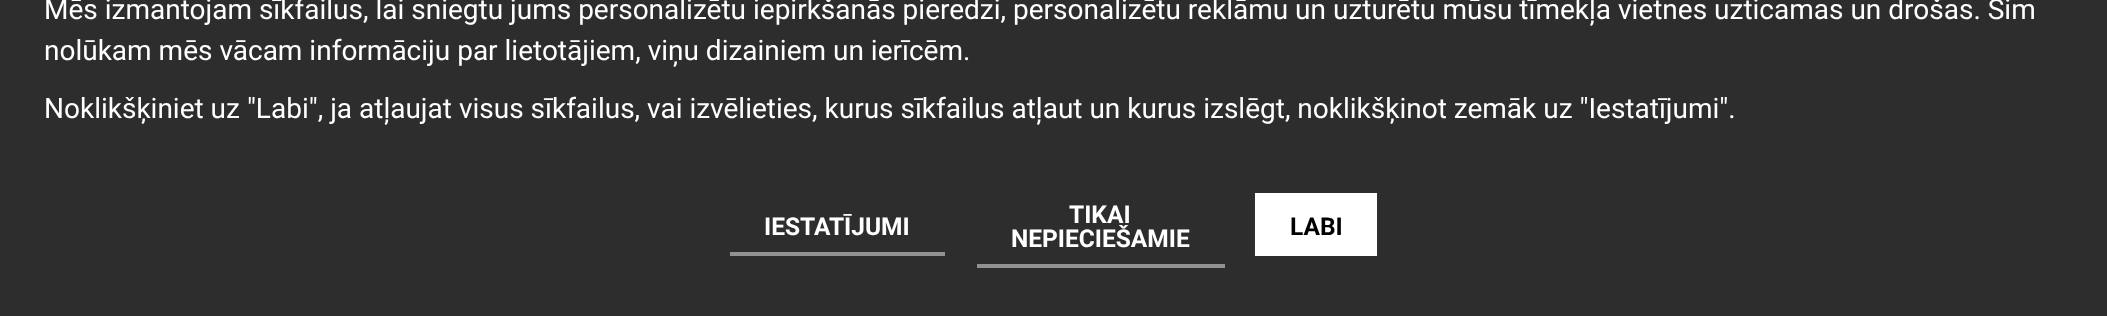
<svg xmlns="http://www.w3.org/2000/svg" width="2107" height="316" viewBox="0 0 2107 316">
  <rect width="100%" height="100%" fill="#2d2d2d"/>
  <text x="44" y="19" font-family="Roboto" font-size="28" fill="#ffffff">Mēs izmantojam sīkfailus, lai sniegtu jums personalizētu iepirkšanās pieredzi, personalizētu reklāmu un uzturētu mūsu tīmekļa vietnes uzticamas un drošas. Šim</text>
  <text x="44" y="60" font-family="Roboto" font-size="28" fill="#ffffff">nolūkam mēs vācam informāciju par lietotājiem, viņu dizainiem un ierīcēm.</text>
  <text x="44" y="118" font-family="Roboto" font-size="28" fill="#ffffff">Noklikšķiniet uz "Labi", ja atļaujat visus sīkfailus, vai izvēlieties, kurus sīkfailus atļaut un kurus izslēgt, noklikšķinot zemāk uz "Iestatījumi".</text>
  <rect x="730" y="252" width="215" height="4" fill="#919191"/>
  <text x="764" y="235" font-family="Roboto" font-size="24.5" font-weight="bold" fill="#ffffff">IESTATĪJUMI</text>
  <rect x="977" y="264" width="248" height="4" fill="#919191"/>
  <text x="1069" y="223" font-family="Roboto" font-size="24.5" font-weight="bold" fill="#ffffff">TIKAI</text>
  <text x="1011" y="247" font-family="Roboto" font-size="24.5" font-weight="bold" fill="#ffffff">NEPIECIEŠAMIE</text>
  <rect x="1255" y="193" width="122" height="63" fill="#ffffff"/>
  <text x="1290" y="235" font-family="Roboto" font-size="24.5" font-weight="bold" fill="#000000">LABI</text>
</svg>
